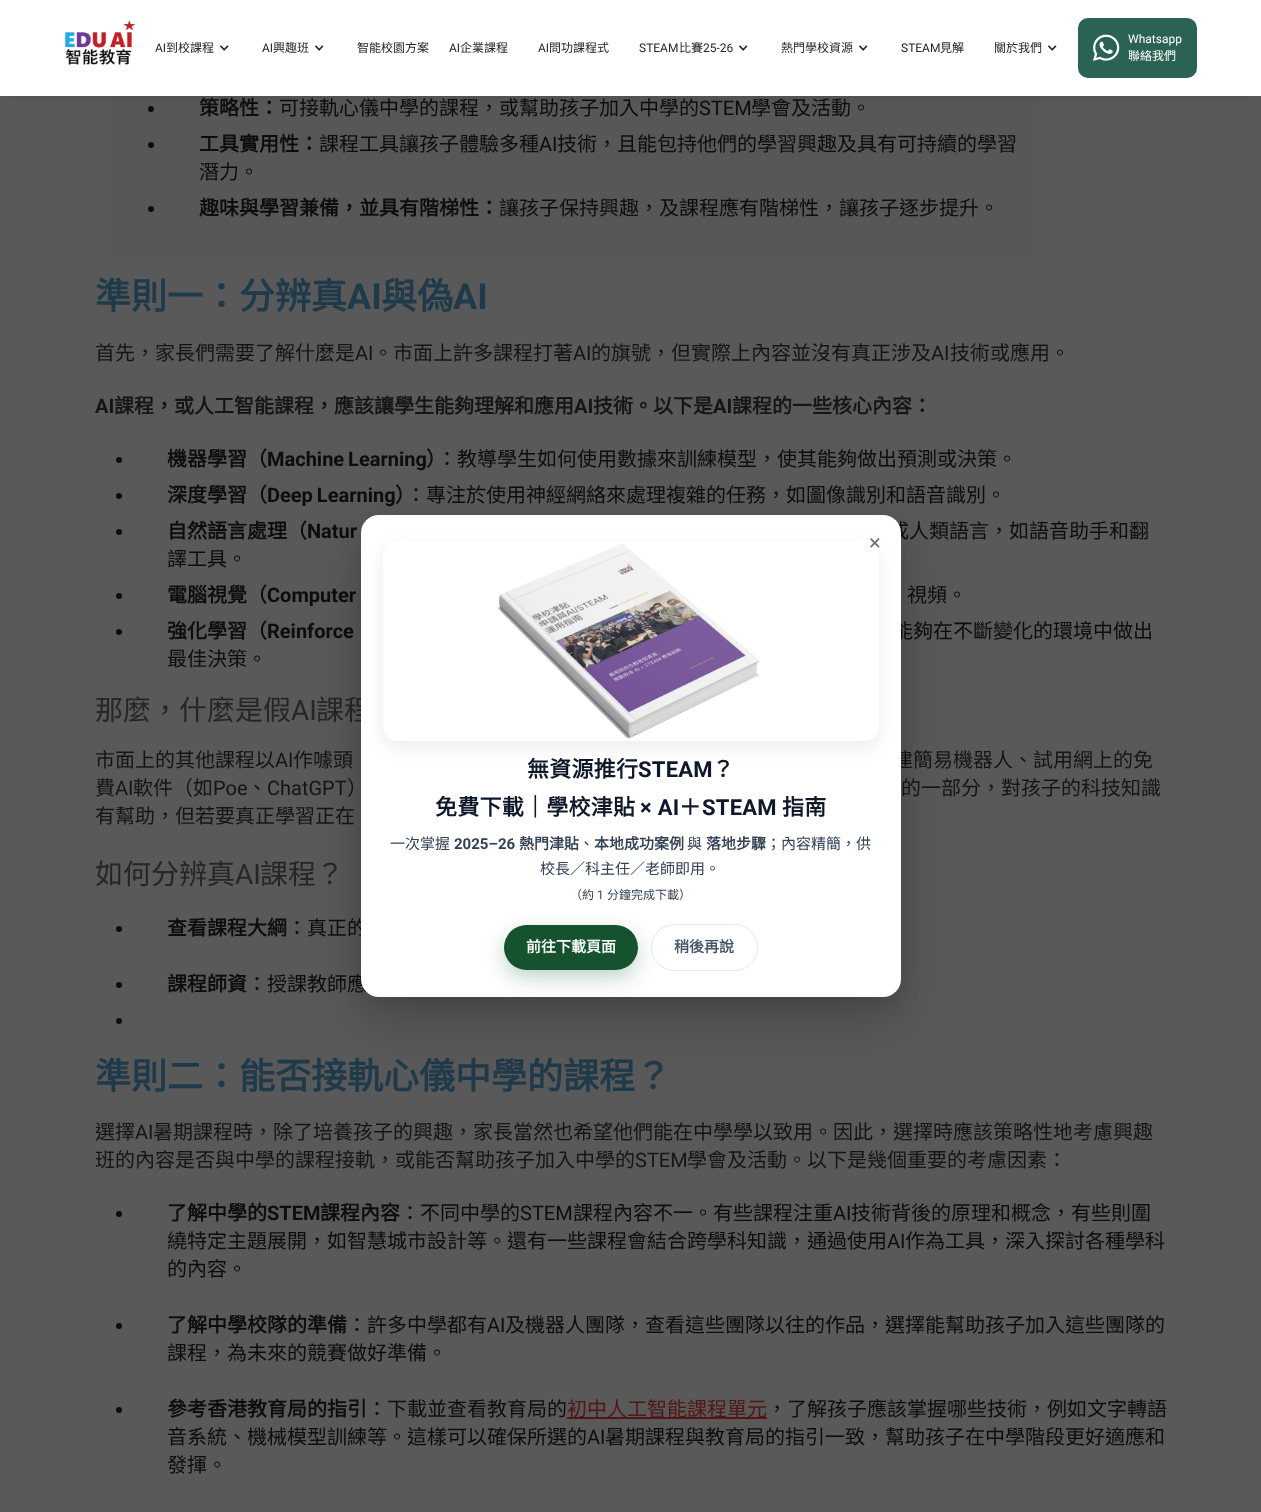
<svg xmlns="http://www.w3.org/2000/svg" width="1261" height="1512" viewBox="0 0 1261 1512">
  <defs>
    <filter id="blur1" x="-50%" y="-200%" width="200%" height="500%"><feGaussianBlur stdDeviation="7.5"/></filter>
    <filter id="blur2" x="-50%" y="-200%" width="200%" height="500%"><feGaussianBlur stdDeviation="12"/></filter>
    <filter id="blur3" x="-50%" y="-200%" width="200%" height="500%"><feGaussianBlur stdDeviation="30"/></filter>
    <clipPath id="clip1"><path d="M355 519H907V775H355ZM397 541H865C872.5 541 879 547.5 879 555V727C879 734.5 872.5 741 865 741H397C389.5 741 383 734.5 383 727V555C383 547.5 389.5 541 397 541Z" clip-rule="evenodd"/></clipPath>
    <filter id="blur4" x="-50%" y="-200%" width="200%" height="500%"><feGaussianBlur stdDeviation="9"/></filter>
    <filter id="blur5" x="-50%" y="-200%" width="200%" height="500%"><feGaussianBlur stdDeviation="10"/></filter>
  </defs>
  <rect width="100%" height="100%" fill="#595959"/>
  <rect x="111" y="96" width="927" height="160" fill="#565758"/>
  <circle cx="151" cy="109" r="3" fill="#0d0d0d"/>
  <rect x="7" y="10" width="1247" height="82" fill="#000000" fill-opacity="0.2" filter="url(#blur1)"/>
  <rect x="0" y="0" width="1261" height="96" fill="#ffffff"/>
  <image x="64" y="20" width="71" height="45" href="img1.png"/>
  <text x="155" y="52" font-family="Roboto" font-size="12" fill="#262626">AI</text>
  <text x="166" y="52" font-family="Noto Sans CJK HK" font-size="12" fill="#262626">到校課程</text>
  <image x="219" y="45" width="10" height="6" href="img2.png"/>
  <text x="262" y="52" font-family="Roboto" font-size="12" fill="#262626">AI</text>
  <text x="273" y="52" font-family="Noto Sans CJK HK" font-size="12" fill="#262626">興趣班</text>
  <image x="314" y="45" width="10" height="6" href="img2.png"/>
  <text x="357" y="52" font-family="Noto Sans CJK HK" font-size="12" fill="#262626">智能校園方案</text>
  <text x="449" y="52" font-family="Roboto" font-size="12" fill="#262626">AI</text>
  <text x="460" y="52" font-family="Noto Sans CJK HK" font-size="12" fill="#262626">企業課程</text>
  <text x="538" y="52" font-family="Roboto" font-size="12" fill="#262626">AI</text>
  <text x="549" y="52" font-family="Noto Sans CJK HK" font-size="12" fill="#262626">問功課程式</text>
  <text x="639" y="52" font-family="Roboto" font-size="12" fill="#262626">STEAM</text>
  <text x="679" y="52" font-family="Noto Sans CJK HK" font-size="12" fill="#262626">比賽</text>
  <text x="703" y="52" font-family="Roboto" font-size="12" fill="#262626">25-26</text>
  <image x="738" y="45" width="10" height="6" href="img2.png"/>
  <text x="781" y="52" font-family="Noto Sans CJK HK" font-size="12" fill="#262626">熱門學校資源</text>
  <image x="858" y="45" width="10" height="6" href="img2.png"/>
  <text x="901" y="52" font-family="Roboto" font-size="12" fill="#262626">STEAM</text>
  <text x="940" y="52" font-family="Noto Sans CJK HK" font-size="12" fill="#262626">見解</text>
  <text x="994" y="52" font-family="Noto Sans CJK HK" font-size="12" fill="#262626">關於我們</text>
  <image x="1047" y="45" width="10" height="6" href="img2.png"/>
  <rect x="1078" y="18" width="119" height="60" rx="10" fill="#2a6353"/>
  <image x="1093" y="34" width="27" height="27" href="img3.png"/>
  <text x="1128" y="43" font-family="Roboto" font-size="12" fill="#ffffff">Whatsapp</text>
  <text x="1128" y="60" font-family="Noto Sans CJK HK" font-size="12" fill="#ffffff">聯絡我們</text>
  <text x="199" y="115" font-family="Noto Sans CJK HK" font-size="20" font-weight="bold" fill="#0d0d0d">策略性：</text>
  <text x="279" y="115" font-family="Noto Sans CJK HK" font-size="20" fill="#0d0d0d">可接軌心儀中學的課程，或幫助孩子加入中學的</text>
  <text x="699" y="115" font-family="Roboto" font-size="20" fill="#0d0d0d">STEM</text>
  <text x="751" y="115" font-family="Noto Sans CJK HK" font-size="20" fill="#0d0d0d">學會及活動。</text>
  <circle cx="151" cy="145" r="3" fill="#0d0d0d"/>
  <text x="199" y="151" font-family="Noto Sans CJK HK" font-size="20" font-weight="bold" fill="#0d0d0d">工具實用性：</text>
  <text x="319" y="151" font-family="Noto Sans CJK HK" font-size="20" fill="#0d0d0d">課程工具讓孩子體驗多種</text>
  <text x="539" y="151" font-family="Roboto" font-size="20" fill="#0d0d0d">AI</text>
  <text x="557" y="151" font-family="Noto Sans CJK HK" font-size="20" fill="#0d0d0d">技術，且能包持他們的學習興趣及具有可持續的學習</text>
  <text x="199" y="179" font-family="Noto Sans CJK HK" font-size="20" fill="#0d0d0d">潛力。</text>
  <circle cx="151" cy="209" r="3" fill="#0d0d0d"/>
  <text x="199" y="215" font-family="Noto Sans CJK HK" font-size="20" font-weight="bold" fill="#0d0d0d">趣味與學習兼備，並具有階梯性：</text>
  <text x="499" y="215" font-family="Noto Sans CJK HK" font-size="20" fill="#0d0d0d">讓孩子保持興趣，及課程應有階梯性，讓孩子逐步提升。</text>
  <text x="95" y="309" font-family="Noto Sans CJK HK" font-size="36" font-weight="bold" fill="#1f3a4a">準則一：分辨真</text>
  <text x="347" y="309" font-family="Roboto" font-size="36" font-weight="bold" fill="#1f3a4a">AI</text>
  <text x="381" y="309" font-family="Noto Sans CJK HK" font-size="36" font-weight="bold" fill="#1f3a4a">與偽</text>
  <text x="453" y="309" font-family="Roboto" font-size="36" font-weight="bold" fill="#1f3a4a">AI</text>
  <text x="95" y="360" font-family="Noto Sans CJK HK" font-size="20" fill="#151515">首先，家長們需要了解什麼是</text>
  <text x="355" y="360" font-family="Roboto" font-size="20" fill="#151515">AI</text>
  <text x="373" y="360" font-family="Noto Sans CJK HK" font-size="20" fill="#151515">。市面上許多課程打著</text>
  <text x="573" y="360" font-family="Roboto" font-size="20" fill="#151515">AI</text>
  <text x="591" y="360" font-family="Noto Sans CJK HK" font-size="20" fill="#151515">的旗號，但實際上內容並沒有真正涉及</text>
  <text x="931" y="360" font-family="Roboto" font-size="20" fill="#151515">AI</text>
  <text x="950" y="360" font-family="Noto Sans CJK HK" font-size="20" fill="#151515">技術或應用。</text>
  <text x="95" y="413" font-family="Roboto" font-size="20" font-weight="bold" fill="#151515">AI</text>
  <text x="114" y="413" font-family="Noto Sans CJK HK" font-size="20" font-weight="bold" fill="#151515">課程，或人工智能課程，應該讓學生能夠理解和應用</text>
  <text x="574" y="413" font-family="Roboto" font-size="20" font-weight="bold" fill="#151515">AI</text>
  <text x="593" y="413" font-family="Noto Sans CJK HK" font-size="20" font-weight="bold" fill="#151515">技術。以下是</text>
  <text x="713" y="413" font-family="Roboto" font-size="20" font-weight="bold" fill="#151515">AI</text>
  <text x="732" y="413" font-family="Noto Sans CJK HK" font-size="20" font-weight="bold" fill="#151515">課程的一些核心內容：</text>
  <circle cx="119" cy="460" r="3" fill="#0d0d0d"/>
  <text x="167" y="466" font-family="Noto Sans CJK HK" font-size="20" font-weight="bold" fill="#0d0d0d">機器學習（</text>
  <text x="267" y="466" word-spacing="-1" font-family="Roboto" font-size="20" font-weight="bold" fill="#0d0d0d">Machine Learning</text>
  <text x="426" y="466" font-family="Noto Sans CJK HK" font-size="20" font-weight="bold" fill="#0d0d0d">）</text>
  <text x="437" y="466" font-family="Noto Sans CJK HK" font-size="20" fill="#0d0d0d">：教導學生如何使用數據來訓練模型，使其能夠做出預測或決策。</text>
  <circle cx="119" cy="496" r="3" fill="#0d0d0d"/>
  <text x="167" y="502" font-family="Noto Sans CJK HK" font-size="20" font-weight="bold" fill="#0d0d0d">深度學習（</text>
  <text x="267" y="502" word-spacing="-1" font-family="Roboto" font-size="20" font-weight="bold" fill="#0d0d0d">Deep Learning</text>
  <text x="395" y="502" font-family="Noto Sans CJK HK" font-size="20" font-weight="bold" fill="#0d0d0d">）</text>
  <text x="406" y="502" font-family="Noto Sans CJK HK" font-size="20" fill="#0d0d0d">：專注於使用神經網絡來處理複雜的任務，如圖像識別和語音識別。</text>
  <circle cx="119" cy="532" r="3" fill="#0d0d0d"/>
  <text x="167" y="538" font-family="Noto Sans CJK HK" font-size="20" font-weight="bold" fill="#0d0d0d">自然語言處理（</text>
  <text x="307" y="538" word-spacing="-1" font-family="Roboto" font-size="20" font-weight="bold" fill="#0d0d0d">Natur</text>
  <text x="889" y="538" font-family="Noto Sans CJK HK" font-size="20" fill="#0d0d0d">成人類語言，如語音助手和翻</text>
  <text x="167" y="566" font-family="Noto Sans CJK HK" font-size="20" fill="#0d0d0d">譯工具。</text>
  <circle cx="119" cy="596" r="3" fill="#0d0d0d"/>
  <text x="167" y="602" font-family="Noto Sans CJK HK" font-size="20" font-weight="bold" fill="#0d0d0d">電腦視覺（</text>
  <text x="267" y="602" word-spacing="-1" font-family="Roboto" font-size="20" font-weight="bold" fill="#0d0d0d">Computer</text>
  <text x="907" y="602" font-family="Noto Sans CJK HK" font-size="20" fill="#0d0d0d">視頻。</text>
  <circle cx="119" cy="632" r="3" fill="#0d0d0d"/>
  <text x="167" y="638" font-family="Noto Sans CJK HK" font-size="20" font-weight="bold" fill="#0d0d0d">強化學習（</text>
  <text x="267" y="638" word-spacing="-1" font-family="Roboto" font-size="20" font-weight="bold" fill="#0d0d0d">Reinforce</text>
  <text x="893" y="638" font-family="Noto Sans CJK HK" font-size="20" fill="#0d0d0d">能夠在不斷變化的環境中做出</text>
  <text x="167" y="666" font-family="Noto Sans CJK HK" font-size="20" fill="#0d0d0d">最佳決策。</text>
  <text x="95" y="720" font-family="Noto Sans CJK HK" font-size="28" fill="#262626">那麼，什麼是假</text>
  <text x="291" y="720" font-family="Roboto" font-size="28" fill="#262626">AI</text>
  <text x="316" y="720" font-family="Noto Sans CJK HK" font-size="28" fill="#262626">課程</text>
  <text x="95" y="767" font-family="Noto Sans CJK HK" font-size="20" fill="#151515">市面上的其他課程以</text>
  <text x="275" y="767" font-family="Roboto" font-size="20" fill="#151515">AI</text>
  <text x="293" y="767" font-family="Noto Sans CJK HK" font-size="20" fill="#151515">作噱頭</text>
  <text x="893" y="767" font-family="Noto Sans CJK HK" font-size="20" fill="#151515">建簡易機器人、試用網上的免</text>
  <text x="95" y="795" font-family="Noto Sans CJK HK" font-size="20" fill="#151515">費</text>
  <text x="115" y="795" font-family="Roboto" font-size="20" fill="#151515">AI</text>
  <text x="133" y="795" font-family="Noto Sans CJK HK" font-size="20" fill="#151515">軟件（如</text>
  <text x="213" y="795" font-family="Roboto" font-size="20" fill="#151515">Poe</text>
  <text x="247" y="795" font-family="Noto Sans CJK HK" font-size="20" fill="#151515">、</text>
  <text x="267" y="795" font-family="Roboto" font-size="20" fill="#151515">ChatGPT</text>
  <text x="347" y="795" font-family="Noto Sans CJK HK" font-size="20" fill="#151515">）</text>
  <text x="901" y="795" font-family="Noto Sans CJK HK" font-size="20" fill="#151515">的一部分，對孩子的科技知識</text>
  <text x="95" y="823" font-family="Noto Sans CJK HK" font-size="20" fill="#151515">有幫助，但若要真正學習正在</text>
  <text x="95" y="884" font-family="Noto Sans CJK HK" font-size="28" fill="#262626">如何分辨真</text>
  <text x="235" y="884" font-family="Roboto" font-size="28" fill="#262626">AI</text>
  <text x="260" y="884" font-family="Noto Sans CJK HK" font-size="28" fill="#262626">課程？</text>
  <circle cx="119" cy="929" r="3" fill="#0d0d0d"/>
  <text x="167" y="935" font-family="Noto Sans CJK HK" font-size="20" font-weight="bold" fill="#0d0d0d">查看課程大綱</text>
  <text x="287" y="935" font-family="Noto Sans CJK HK" font-size="20" fill="#0d0d0d">：真正的</text>
  <circle cx="119" cy="985" r="3" fill="#0d0d0d"/>
  <text x="167" y="991" font-family="Noto Sans CJK HK" font-size="20" font-weight="bold" fill="#0d0d0d">課程師資</text>
  <text x="247" y="991" font-family="Noto Sans CJK HK" font-size="20" fill="#0d0d0d">：授課教師應</text>
  <circle cx="119" cy="1021" r="3" fill="#0d0d0d"/>
  <text x="95" y="1089" font-family="Noto Sans CJK HK" font-size="36" font-weight="bold" fill="#1f3a4a">準則二：能否接軌心儀中學的課程？</text>
  <text x="95" y="1139" font-family="Noto Sans CJK HK" font-size="20" fill="#151515">選擇</text>
  <text x="135" y="1139" font-family="Roboto" font-size="20" fill="#151515">AI</text>
  <text x="153" y="1139" font-family="Noto Sans CJK HK" font-size="20" fill="#151515">暑期課程時，除了培養孩子的興趣，家長當然也希望他們能在中學學以致用。因此，選擇時應該策略性地考慮興趣</text>
  <text x="95" y="1167" font-family="Noto Sans CJK HK" font-size="20" fill="#151515">班的內容是否與中學的課程接軌，或能否幫助孩子加入中學的</text>
  <text x="635" y="1167" font-family="Roboto" font-size="20" fill="#151515">STEM</text>
  <text x="687" y="1167" font-family="Noto Sans CJK HK" font-size="20" fill="#151515">學會及活動。以下是幾個重要的考慮因素：</text>
  <circle cx="119" cy="1214" r="3" fill="#0d0d0d"/>
  <text x="167" y="1220" font-family="Noto Sans CJK HK" font-size="20" font-weight="bold" fill="#0d0d0d">了解中學的</text>
  <text x="267" y="1220" font-family="Roboto" font-size="20" font-weight="bold" fill="#0d0d0d">STEM</text>
  <text x="320" y="1220" font-family="Noto Sans CJK HK" font-size="20" font-weight="bold" fill="#0d0d0d">課程內容</text>
  <text x="400" y="1220" font-family="Noto Sans CJK HK" font-size="20" fill="#0d0d0d">：不同中學的</text>
  <text x="520" y="1220" font-family="Roboto" font-size="20" fill="#0d0d0d">STEM</text>
  <text x="573" y="1220" font-family="Noto Sans CJK HK" font-size="20" fill="#0d0d0d">課程內容不一。有些課程注重</text>
  <text x="833" y="1220" font-family="Roboto" font-size="20" fill="#0d0d0d">AI</text>
  <text x="851" y="1220" font-family="Noto Sans CJK HK" font-size="20" fill="#0d0d0d">技術背後的原理和概念，有些則圍</text>
  <text x="167" y="1248" font-family="Noto Sans CJK HK" font-size="20" fill="#0d0d0d">繞特定主題展開，如智慧城市設計等。還有一些課程會結合跨學科知識，通過使用</text>
  <text x="887" y="1248" font-family="Roboto" font-size="20" fill="#0d0d0d">AI</text>
  <text x="905" y="1248" font-family="Noto Sans CJK HK" font-size="20" fill="#0d0d0d">作為工具，深入探討各種學科</text>
  <text x="167" y="1276" font-family="Noto Sans CJK HK" font-size="20" fill="#0d0d0d">的內容。</text>
  <circle cx="119" cy="1326" r="3" fill="#0d0d0d"/>
  <text x="167" y="1332" font-family="Noto Sans CJK HK" font-size="20" font-weight="bold" fill="#0d0d0d">了解中學校隊的準備</text>
  <text x="347" y="1332" font-family="Noto Sans CJK HK" font-size="20" fill="#0d0d0d">：許多中學都有</text>
  <text x="487" y="1332" font-family="Roboto" font-size="20" fill="#0d0d0d">AI</text>
  <text x="505" y="1332" font-family="Noto Sans CJK HK" font-size="20" fill="#0d0d0d">及機器人團隊，查看這些團隊以往的作品，選擇能幫助孩子加入這些團隊的</text>
  <text x="167" y="1360" font-family="Noto Sans CJK HK" font-size="20" fill="#0d0d0d">課程，為未來的競賽做好準備。</text>
  <circle cx="119" cy="1410" r="3" fill="#0d0d0d"/>
  <text x="167" y="1416" font-family="Noto Sans CJK HK" font-size="20" font-weight="bold" fill="#0d0d0d">參考香港教育局的指引</text>
  <text x="367" y="1416" font-family="Noto Sans CJK HK" font-size="20" fill="#0d0d0d">：下載並查看教育局的</text>
  <rect x="567" y="1417" width="200" height="2" fill="#531616"/>
  <text x="567" y="1416" font-family="Noto Sans CJK HK" font-size="20" fill="#531616">初中人工智能課程單元</text>
  <text x="767" y="1416" font-family="Noto Sans CJK HK" font-size="20" fill="#0d0d0d">，了解孩子應該掌握哪些技術，例如文字轉語</text>
  <text x="167" y="1444" font-family="Noto Sans CJK HK" font-size="20" fill="#0d0d0d">音系統、機械模型訓練等。這樣可以確保所選的</text>
  <text x="587" y="1444" font-family="Roboto" font-size="20" fill="#0d0d0d">AI</text>
  <text x="605" y="1444" font-family="Noto Sans CJK HK" font-size="20" fill="#0d0d0d">暑期課程與教育局的指引一致，幫助孩子在中學階段更好適應和</text>
  <text x="167" y="1472" font-family="Noto Sans CJK HK" font-size="20" fill="#0d0d0d">發揮。</text>
  <rect x="361" y="523" width="540" height="482" rx="18" fill="#000000" fill-opacity="0.12" filter="url(#blur2)"/>
  <rect x="361" y="539" width="540" height="482" rx="18" fill="#000000" fill-opacity="0.18" filter="url(#blur3)"/>
  <rect x="361" y="515" width="540" height="482" rx="18" fill="#ffffff"/>
  <g clip-path="url(#clip1)">
    <rect x="383" y="547" width="496" height="200" rx="14" fill="#000000" fill-opacity="0.08" filter="url(#blur4)"/>
  </g>
  <image x="497" y="544" width="263" height="194" href="img4.png"/>
  <text x="869" y="550" font-family="Roboto" font-size="22" fill="#6f737c">×</text>
  <text x="527" y="777" font-family="Noto Sans CJK HK" font-size="22" font-weight="bold" letter-spacing="0.25" fill="#0f172a">無資源推行</text>
  <text x="638" y="777" font-family="Roboto" font-size="22" font-weight="bold" letter-spacing="0.25" fill="#0f172a">STEAM</text>
  <text x="712" y="777" font-family="Noto Sans CJK HK" font-size="22" font-weight="bold" letter-spacing="0.25" fill="#0f172a">？</text>
  <text x="435" y="815" font-family="Noto Sans CJK HK" font-size="22" font-weight="bold" letter-spacing="0.25" fill="#0f172a">免費下載｜學校津貼</text>
  <text x="640" y="815" font-family="Roboto" font-size="22" font-weight="bold" letter-spacing="0.25" fill="#0f172a">× AI</text>
  <text x="679" y="815" font-family="Noto Sans CJK HK" font-size="22" font-weight="bold" letter-spacing="0.25" fill="#0f172a">＋</text>
  <text x="702" y="815" font-family="Roboto" font-size="22" font-weight="bold" letter-spacing="0.25" fill="#0f172a">STEAM</text>
  <text x="782" y="815" font-family="Noto Sans CJK HK" font-size="22" font-weight="bold" letter-spacing="0.25" fill="#0f172a">指南</text>
  <text x="390" y="849" font-family="Noto Sans CJK HK" font-size="15" fill="#334155">一次掌握</text>
  <text x="454" y="849" font-family="Roboto" font-size="15" font-weight="bold" fill="#334155">2025–26</text>
  <text x="519" y="849" font-family="Noto Sans CJK HK" font-size="15" font-weight="bold" fill="#334155">熱門津貼</text>
  <text x="579" y="849" font-family="Noto Sans CJK HK" font-size="15" fill="#334155">、</text>
  <text x="594" y="849" font-family="Noto Sans CJK HK" font-size="15" font-weight="bold" fill="#334155">本地成功案例</text>
  <text x="687" y="849" font-family="Noto Sans CJK HK" font-size="15" fill="#334155">與</text>
  <text x="706" y="849" font-family="Noto Sans CJK HK" font-size="15" font-weight="bold" fill="#334155">落地步驟</text>
  <text x="766" y="849" font-family="Noto Sans CJK HK" font-size="15" fill="#334155">；內容精簡，供</text>
  <text x="540" y="874" font-family="Noto Sans CJK HK" font-size="15" fill="#334155">校長／科主任／老師即用。</text>
  <text x="570" y="899" font-family="Noto Sans CJK HK" font-size="12" fill="#334155">（約</text>
  <text x="597" y="899" font-family="Roboto" font-size="12" fill="#334155">1</text>
  <text x="607" y="899" font-family="Noto Sans CJK HK" font-size="12" fill="#334155">分鐘完成下載）</text>
  <rect x="504" y="933" width="134" height="45" rx="22.5" fill="#14532d" fill-opacity="0.25" filter="url(#blur5)"/>
  <rect x="504" y="925" width="134" height="45" rx="22.5" fill="#14532d"/>
  <text x="526" y="952" font-family="Noto Sans CJK HK" font-size="15" font-weight="bold" fill="#ffffff">前往下載頁面</text>
  <rect x="651.5" y="924.5" width="106" height="46" rx="23" fill="none" stroke="#e2e8f0"/>
  <text x="674" y="952" font-family="Noto Sans CJK HK" font-size="15" font-weight="bold" fill="#475569">稍後再說</text>
</svg>
